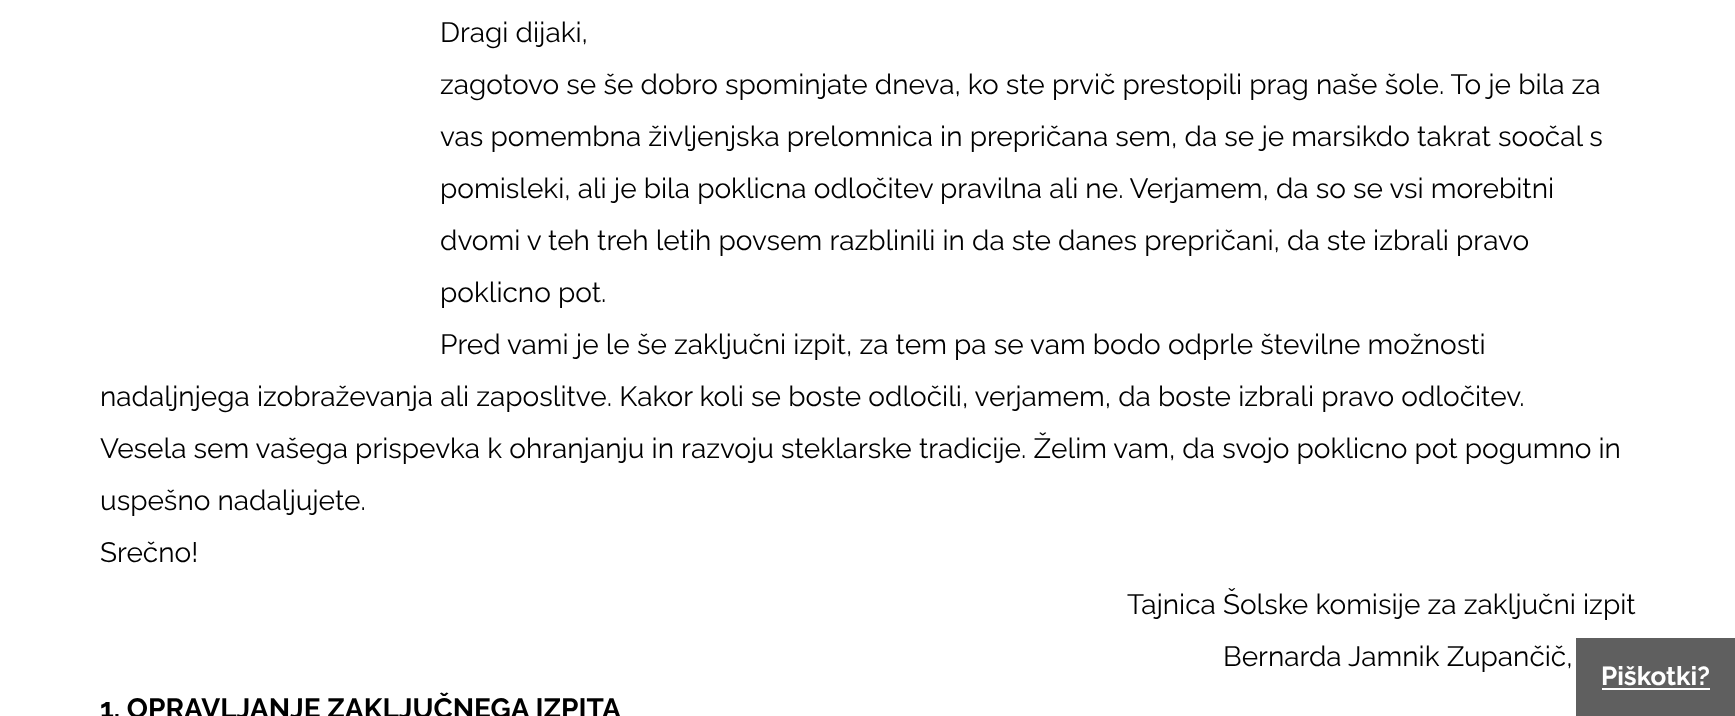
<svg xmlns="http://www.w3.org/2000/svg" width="1735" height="716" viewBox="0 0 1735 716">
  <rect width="100%" height="100%" fill="#ffffff"/>
  <text x="440" y="42" font-family="Raleway" font-size="28" fill="#000000">Dragi dijaki,</text>
  <text x="440" y="94" font-family="Raleway" font-size="28" fill="#000000">zagotovo se še dobro spominjate dneva, ko ste prvič prestopili prag naše šole. To je bila za</text>
  <text x="440" y="146" font-family="Raleway" font-size="28" fill="#000000">vas pomembna življenjska prelomnica in prepričana sem, da se je marsikdo takrat soočal s</text>
  <text x="440" y="198" font-family="Raleway" font-size="28" fill="#000000">pomisleki, ali je bila poklicna odločitev pravilna ali ne. Verjamem, da so se vsi morebitni</text>
  <text x="440" y="250" font-family="Raleway" font-size="28" fill="#000000">dvomi v teh treh letih povsem razblinili in da ste danes prepričani, da ste izbrali pravo</text>
  <text x="440" y="302" font-family="Raleway" font-size="28" fill="#000000">poklicno pot.</text>
  <text x="440" y="354" font-family="Raleway" font-size="28" fill="#000000">Pred vami je le še zaključni izpit, za tem pa se vam bodo odprle številne možnosti</text>
  <text x="100" y="406" font-family="Raleway" font-size="28" fill="#000000">nadaljnjega izobraževanja ali zaposlitve. Kakor koli se boste odločili, verjamem, da boste izbrali pravo odločitev.</text>
  <text x="100" y="458" font-family="Raleway" font-size="28" fill="#000000">Vesela sem vašega prispevka k ohranjanju in razvoju steklarske tradicije. Želim vam, da svojo poklicno pot pogumno in</text>
  <text x="100" y="510" font-family="Raleway" font-size="28" fill="#000000">uspešno nadaljujete.</text>
  <text x="100" y="562" font-family="Raleway" font-size="28" fill="#000000">Srečno!</text>
  <text x="1127" y="614" font-family="Raleway" font-size="28" fill="#000000">Tajnica Šolske komisije za zaključni izpit</text>
  <text x="1223" y="666" font-family="Raleway" font-size="28" fill="#000000">Bernarda Jamnik Zupančič,</text>
  <text x="100" y="718" font-family="Raleway" font-size="28" font-weight="bold" fill="#000000">1. OPRAVLJANJE ZAKLJUČNEGA IZPITA</text>
  <rect x="1576" y="638" width="159" height="78" fill="#565656" fill-opacity="0.95"/>
  <text x="1601" y="685" font-family="Raleway" font-size="26" font-weight="bold" fill="#ffffff">Piškotki?</text>
  <rect x="1602" y="688" width="108" height="2" fill="#ffffff"/>
</svg>
